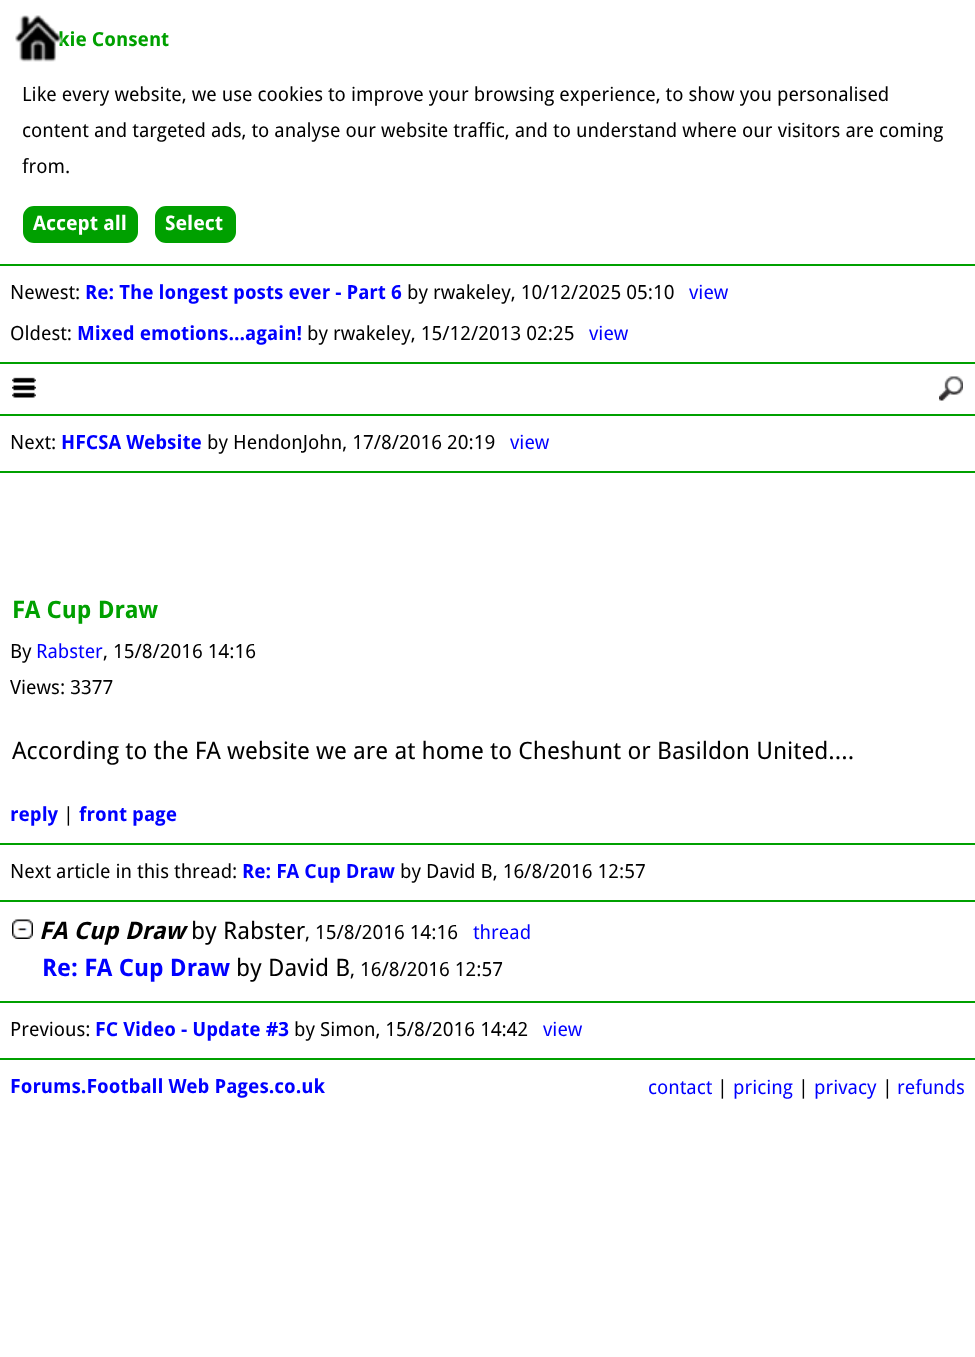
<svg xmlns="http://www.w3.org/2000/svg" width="975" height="1357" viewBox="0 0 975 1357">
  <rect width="100%" height="100%" fill="#ffffff"/>
  <text x="58" y="46" font-family="Droid Sans" font-size="19.5" font-weight="bold" fill="#00a000">kie Consent</text>
  <text x="22" y="101" font-family="Droid Sans" font-size="19.5" fill="#000000">Like every website, we use cookies to improve your browsing experience, to show you personalised</text>
  <text x="22" y="137" font-family="Droid Sans" font-size="19.5" fill="#000000">content and targeted ads, to analyse our website traffic, and to understand where our visitors are coming</text>
  <text x="22" y="173" font-family="Droid Sans" font-size="19.5" fill="#000000">from.</text>
  <rect x="24" y="207" width="113" height="35" rx="10" fill="#00a000" stroke="#00a000" stroke-width="2"/>
  <text x="33" y="230" font-family="Droid Sans" font-size="20" font-weight="bold" fill="#ffffff">Accept all</text>
  <rect x="156" y="207" width="79" height="35" rx="10" fill="#00a000" stroke="#00a000" stroke-width="2"/>
  <text x="165" y="230" font-family="Droid Sans" font-size="20" font-weight="bold" fill="#ffffff">Select</text>
  <rect x="0" y="264" width="975" height="2" fill="#00a000"/>
  <image x="15" y="15" width="48" height="47" href="img1.png"/>
  <text x="10" y="299" font-family="Droid Sans" font-size="19.5" fill="#000000">Newest:</text>
  <text x="85" y="299" font-family="Droid Sans" font-size="19.5" font-weight="bold" fill="#0000ff">Re: The longest posts ever - Part 6</text>
  <text x="407" y="299" font-family="Droid Sans" font-size="19.5" fill="#000000">by rwakeley, 10/12/2025 05:10</text>
  <text x="689" y="299" font-family="Droid Sans" font-size="19.5" fill="#0000ff">view</text>
  <text x="10" y="340" font-family="Droid Sans" font-size="19.5" fill="#000000">Oldest:</text>
  <text x="77" y="340" font-family="Droid Sans" font-size="19.5" font-weight="bold" fill="#0000ff">Mixed emotions...again!</text>
  <text x="307" y="340" font-family="Droid Sans" font-size="19.5" fill="#000000">by rwakeley, 15/12/2013 02:25</text>
  <text x="589" y="340" font-family="Droid Sans" font-size="19.5" fill="#0000ff">view</text>
  <rect x="0" y="362" width="975" height="2" fill="#00a000"/>
  <image x="12" y="377" width="24" height="21" href="img2.png"/>
  <image x="939" y="376" width="24" height="25" href="img3.png"/>
  <rect x="0" y="414" width="975" height="2" fill="#00a000"/>
  <text x="10" y="449" font-family="Droid Sans" font-size="19.5" fill="#000000">Next:</text>
  <text x="61" y="449" font-family="Droid Sans" font-size="19.5" font-weight="bold" fill="#0000ff">HFCSA Website</text>
  <text x="207" y="449" font-family="Droid Sans" font-size="19.5" fill="#000000">by HendonJohn, 17/8/2016 20:19</text>
  <text x="510" y="449" font-family="Droid Sans" font-size="19.5" fill="#0000ff">view</text>
  <rect x="0" y="471" width="975" height="2" fill="#00a000"/>
  <text x="12" y="618" font-family="Droid Sans" font-size="24" font-weight="bold" fill="#00a000">FA Cup Draw</text>
  <text x="10" y="658" font-family="Droid Sans" font-size="19.5" fill="#000000">By</text>
  <text x="36" y="658" font-family="Droid Sans" font-size="19.5" fill="#0000ff">Rabster</text>
  <text x="103" y="658" font-family="Droid Sans" font-size="19.5" fill="#000000">, 15/8/2016 14:16</text>
  <text x="10" y="694" font-family="Droid Sans" font-size="19.5" fill="#000000">Views: 3377</text>
  <text x="12" y="759" font-family="Droid Sans" font-size="24" fill="#000000">According to the FA website we are at home to Cheshunt or Basildon United....</text>
  <text x="10" y="821" font-family="Droid Sans" font-size="19.5" font-weight="bold" fill="#0000ff">reply</text>
  <text x="63" y="821" font-family="Droid Sans" font-size="19.5" fill="#000000">|</text>
  <text x="79" y="821" font-family="Droid Sans" font-size="19.5" font-weight="bold" fill="#0000ff">front page</text>
  <rect x="0" y="843" width="975" height="2" fill="#00a000"/>
  <text x="10" y="878" font-family="Droid Sans" font-size="19.5" fill="#000000">Next article in this thread:</text>
  <text x="242" y="878" font-family="Droid Sans" font-size="19.5" font-weight="bold" fill="#0000ff">Re: FA Cup Draw</text>
  <text x="400" y="878" font-family="Droid Sans" font-size="19.5" fill="#000000">by David B, 16/8/2016 12:57</text>
  <rect x="0" y="900" width="975" height="2" fill="#00a000"/>
  <image x="12" y="919" width="21" height="20" href="img4.png"/>
  <text x="39" y="939" font-family="Droid Sans" font-size="24" font-weight="bold" font-style="italic" fill="#000000">FA Cup Draw</text>
  <text x="191" y="939" font-family="Droid Sans" font-size="24" fill="#000000">by Rabster</text>
  <text x="305" y="939" font-family="Droid Sans" font-size="19.5" fill="#000000">, 15/8/2016 14:16</text>
  <text x="473" y="939" font-family="Droid Sans" font-size="19.5" fill="#0000ff">thread</text>
  <text x="42" y="976" font-family="Droid Sans" font-size="24" font-weight="bold" fill="#0000ff">Re: FA Cup Draw</text>
  <text x="236" y="976" font-family="Droid Sans" font-size="24" fill="#000000">by David B</text>
  <text x="350" y="976" font-family="Droid Sans" font-size="19.5" fill="#000000">, 16/8/2016 12:57</text>
  <rect x="0" y="1001" width="975" height="2" fill="#00a000"/>
  <text x="10" y="1036" font-family="Droid Sans" font-size="19.5" fill="#000000">Previous:</text>
  <text x="95" y="1036" font-family="Droid Sans" font-size="19.5" font-weight="bold" fill="#0000ff">FC Video - Update #3</text>
  <text x="294" y="1036" font-family="Droid Sans" font-size="19.5" fill="#000000">by Simon, 15/8/2016 14:42</text>
  <text x="543" y="1036" font-family="Droid Sans" font-size="19.5" fill="#0000ff">view</text>
  <rect x="0" y="1058" width="975" height="2" fill="#00a000"/>
  <text x="10" y="1093" font-family="Droid Sans" font-size="19.5" font-weight="bold" fill="#0000ff">Forums.Football Web Pages.co.uk</text>
  <text x="648" y="1094" font-family="Droid Sans" font-size="19.5" fill="#0000ff">contact</text>
  <text x="717" y="1094" font-family="Droid Sans" font-size="19.5" fill="#000000">|</text>
  <text x="733" y="1094" font-family="Droid Sans" font-size="19.5" fill="#0000ff">pricing</text>
  <text x="798" y="1094" font-family="Droid Sans" font-size="19.5" fill="#000000">|</text>
  <text x="814" y="1094" font-family="Droid Sans" font-size="19.5" fill="#0000ff">privacy</text>
  <text x="882" y="1094" font-family="Droid Sans" font-size="19.5" fill="#000000">|</text>
  <text x="897" y="1094" font-family="Droid Sans" font-size="19.5" fill="#0000ff">refunds</text>
</svg>
